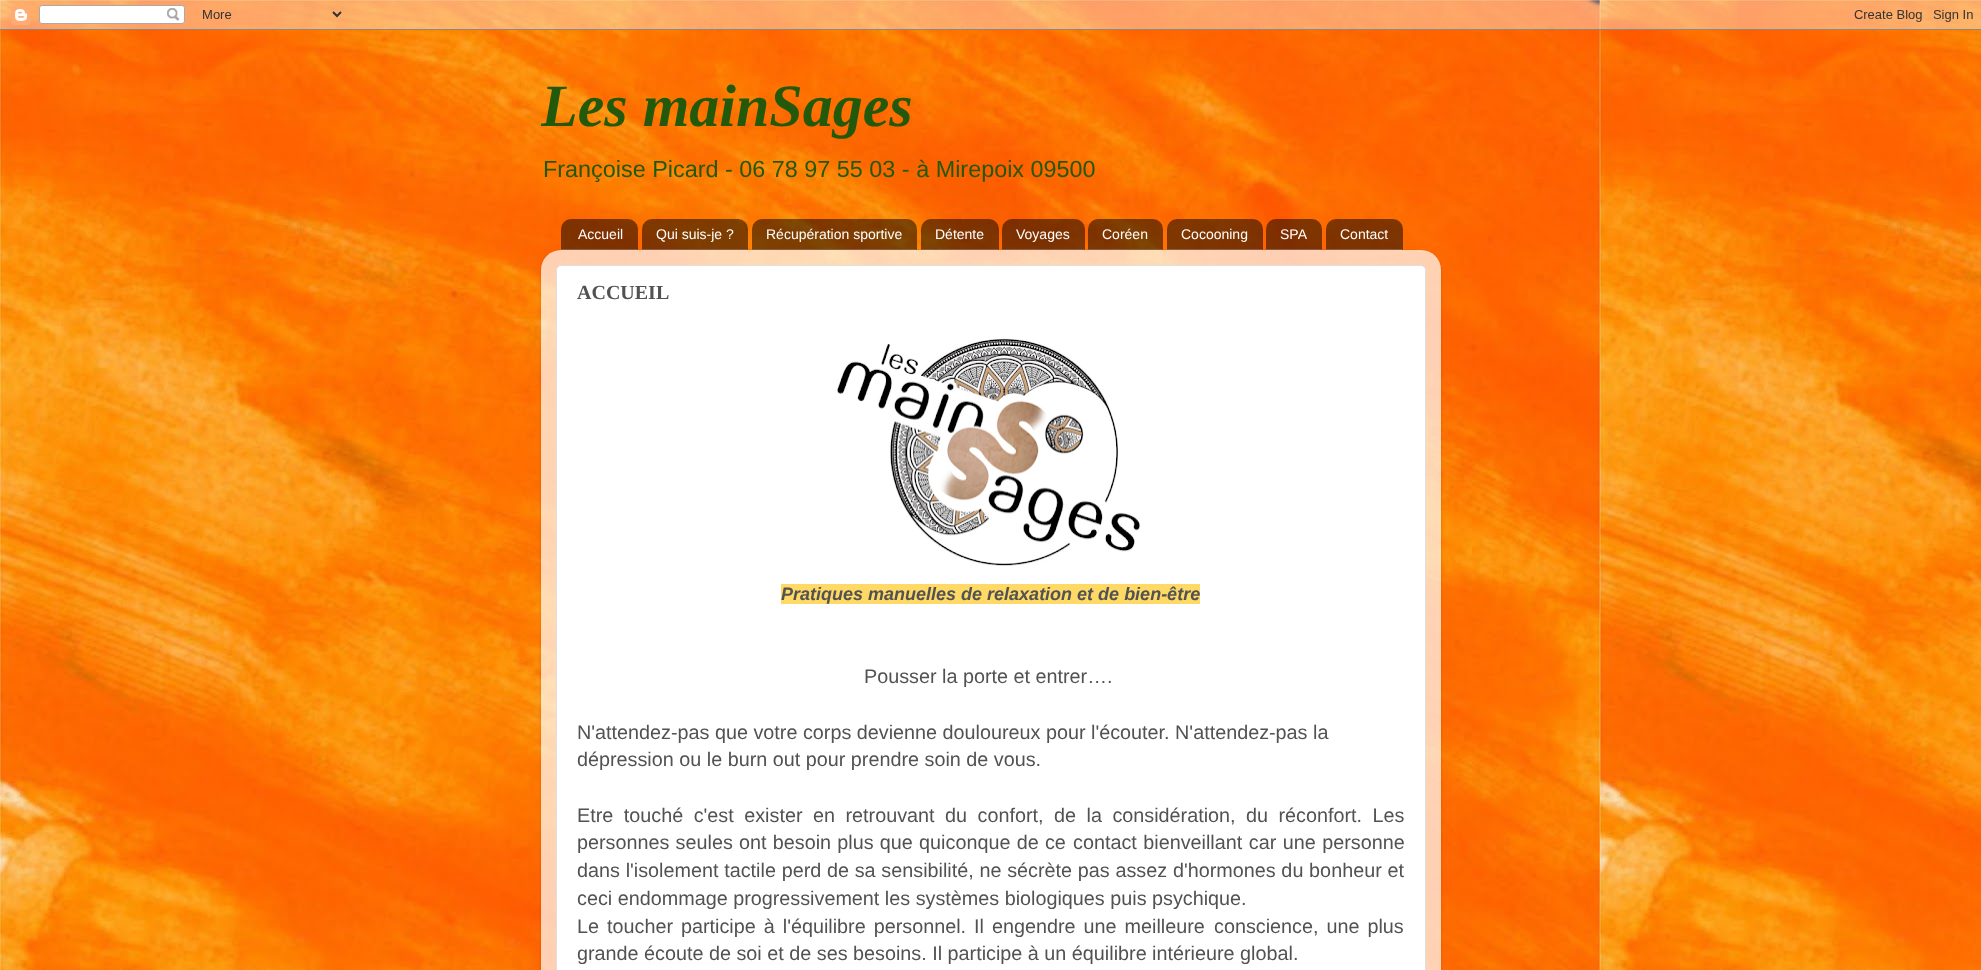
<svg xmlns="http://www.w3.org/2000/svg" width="1981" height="970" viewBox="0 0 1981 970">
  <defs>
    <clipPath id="clip1"><rect x="541" y="50" width="900" height="160"/></clipPath>
    <clipPath id="clip2"><path d="M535 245H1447V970H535ZM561 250H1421C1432 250 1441 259 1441 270V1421H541V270C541 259 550 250 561 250Z" clip-rule="evenodd"/></clipPath>
    <filter id="blur1" x="-50%" y="-200%" width="200%" height="500%"><feGaussianBlur stdDeviation="1.5"/></filter>
  </defs>
  <rect width="100%" height="100%" fill="#ffffff"/>
  <image x="0" y="0" width="1981" height="970" href="img1.png"/>
  <image x="0" y="0" width="1981" height="30" href="img2.png"/>
  <g clip-path="url(#clip1)">
    <text x="541" y="126" font-family="Liberation Serif" font-size="60" font-weight="bold" font-style="italic" fill="#23590b">Les mainSages</text>
  </g>
  <text x="543" y="177" font-family="Liberation Sans" font-size="23.4" fill="#23590b">Françoise Picard - 06 78 97 55 03 - à Mirepoix 09500</text>
  <image x="561" y="219" width="77" height="31" href="img3.png"/>
  <path d="M638 250L637 249H561V250Z" fill="#875e4a"/>
  <text x="578" y="239" font-family="Liberation Sans" font-size="14" fill="#ffffff">Accueil</text>
  <image x="642" y="219" width="106" height="31" href="img4.png"/>
  <path d="M748 250L747 249H642V250Z" fill="#875e4a"/>
  <text x="656" y="239" font-family="Liberation Sans" font-size="14" fill="#ffffff">Qui suis-je ?</text>
  <image x="752" y="219" width="165" height="31" href="img5.png"/>
  <path d="M917 250L916 249H752V250Z" fill="#875e4a"/>
  <text x="766" y="239" font-family="Liberation Sans" font-size="14" fill="#ffffff">Récupération sportive</text>
  <image x="921" y="219" width="78" height="31" href="img6.png"/>
  <path d="M999 250L998 249H921V250Z" fill="#875e4a"/>
  <text x="935" y="239" font-family="Liberation Sans" font-size="14" fill="#ffffff">Détente</text>
  <image x="1002" y="219" width="83" height="31" href="img7.png"/>
  <path d="M1085 250L1084 249H1002V250Z" fill="#875e4a"/>
  <text x="1016" y="239" font-family="Liberation Sans" font-size="14" fill="#ffffff">Voyages</text>
  <image x="1088" y="219" width="75" height="31" href="img8.png"/>
  <path d="M1163 250L1162 249H1088V250Z" fill="#875e4a"/>
  <text x="1102" y="239" font-family="Liberation Sans" font-size="14" fill="#ffffff">Coréen</text>
  <image x="1167" y="219" width="96" height="31" href="img9.png"/>
  <path d="M1263 250L1262 249H1167V250Z" fill="#875e4a"/>
  <text x="1181" y="239" font-family="Liberation Sans" font-size="14" fill="#ffffff">Cocooning</text>
  <image x="1266" y="219" width="56" height="31" href="img10.png"/>
  <path d="M1322 250L1321 249H1266V250Z" fill="#875e4a"/>
  <text x="1280" y="239" font-family="Liberation Sans" font-size="14" fill="#ffffff">SPA</text>
  <image x="1326" y="219" width="77" height="31" href="img11.png"/>
  <path d="M1403 250L1402 249H1326V250Z" fill="#875e4a"/>
  <text x="1340" y="239" font-family="Liberation Sans" font-size="14" fill="#ffffff">Contact</text>
  <g clip-path="url(#clip2)">
    <rect x="541" y="251" width="900" height="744" rx="20" fill="#000000" fill-opacity="0.15" filter="url(#blur1)"/>
  </g>
  <image x="541" y="250" width="900" height="720" href="img12.png"/>
  <rect x="556.5" y="265.5" width="869" height="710" rx="4.5" fill="#ffffff" stroke="#dfdfdf"/>
  <text x="577" y="299" font-family="Liberation Serif" font-size="20" font-weight="bold" fill="#525252">ACCUEIL</text>
  <image x="837" y="338" width="303" height="228" href="img13.png"/>
  <rect x="781" y="584" width="419" height="20" fill="#ffd966"/>
  <text x="781" y="600" font-family="Liberation Sans" font-size="18" font-weight="bold" font-style="italic" fill="#525252">Pratiques manuelles de relaxation et de bien-être</text>
  <text x="864" y="683" font-family="Liberation Sans" font-size="19.8" fill="#525252">Pousser la porte et entrer….</text>
  <text x="577" y="739" font-family="Liberation Sans" font-size="19.8" fill="#525252">N'attendez-pas que votre corps devienne douloureux pour l'écouter. N'attendez-pas la</text>
  <text x="577" y="766" font-family="Liberation Sans" font-size="19.8" fill="#525252">dépression ou le burn out pour prendre soin de vous.</text>
  <text x="577" y="822" word-spacing="5" font-family="Liberation Sans" font-size="19.8" fill="#525252">Etre touché c'est exister en retrouvant du confort, de la considération,</text>
  <text x="1246" y="822" word-spacing="5" font-family="Liberation Sans" font-size="19.8" fill="#525252">du réconfort. Les</text>
  <text x="577" y="849" word-spacing="0.75" font-family="Liberation Sans" font-size="19.8" fill="#525252">personnes seules ont besoin plus que quiconque de ce</text>
  <text x="1073" y="849" word-spacing="1" font-family="Liberation Sans" font-size="19.8" fill="#525252">contact bienveillant car une personne</text>
  <text x="577" y="877" word-spacing="0.25" font-family="Liberation Sans" font-size="19.8" fill="#525252">dans l'isolement tactile perd de sa sensibilité, ne sécrète pas assez d'hormones du bonheur et</text>
  <text x="577" y="905" font-family="Liberation Sans" font-size="19.8" fill="#525252">ceci endommage progressivement les systèmes biologiques puis psychique.</text>
  <text x="577" y="933" word-spacing="2.5" font-family="Liberation Sans" font-size="19.8" fill="#525252">Le toucher participe à l'équilibre personnel. Il engendre une meilleure</text>
  <text x="1214" y="933" word-spacing="2.5" font-family="Liberation Sans" font-size="19.8" fill="#525252">conscience, une plus</text>
  <text x="577" y="960" font-family="Liberation Sans" font-size="19.8" fill="#525252">grande écoute de soi et de ses besoins. Il participe à un équilibre intérieure global.</text>
</svg>
